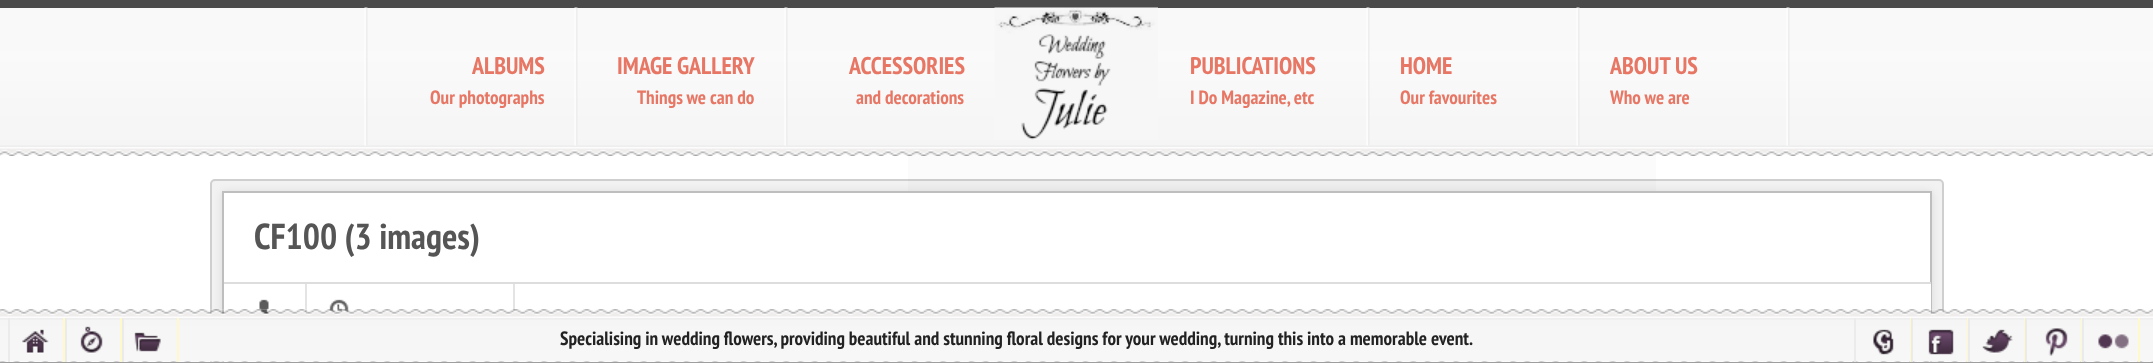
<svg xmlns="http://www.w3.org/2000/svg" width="2153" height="363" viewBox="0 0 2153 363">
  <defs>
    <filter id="blur1" x="-50%" y="-200%" width="200%" height="500%"><feGaussianBlur stdDeviation="4"/></filter>
  </defs>
  <rect width="100%" height="100%" fill="#ffffff"/>
  <rect x="908" y="151" width="748" height="40" fill="#fbfbfb"/>
  <image x="0" y="8" width="2153" height="148" href="img1.png"/>
  <rect x="0" y="0" width="2153" height="8" fill="#4b4b4b"/>
  <image x="994" y="7" width="164" height="133" href="img2.png"/>
  <image x="364" y="7" width="4" height="139" href="img3.png"/>
  <text x="472" y="74" font-family="PT Sans Narrow" font-size="24" font-weight="bold" fill="#e77664">ALBUMS</text>
  <text x="430" y="104" font-family="PT Sans Narrow" font-size="19.2" font-weight="bold" fill="#e77664">Our photographs</text>
  <image x="574" y="7" width="4" height="139" href="img3.png"/>
  <text x="617" y="74" font-family="PT Sans Narrow" font-size="24" font-weight="bold" fill="#e77664">IMAGE GALLERY</text>
  <text x="637" y="104" font-family="PT Sans Narrow" font-size="19.2" font-weight="bold" fill="#e77664">Things we can do</text>
  <image x="784" y="7" width="4" height="139" href="img3.png"/>
  <text x="849" y="74" font-family="PT Sans Narrow" font-size="24" font-weight="bold" fill="#e77664">ACCESSORIES</text>
  <text x="856" y="104" font-family="PT Sans Narrow" font-size="19.2" font-weight="bold" fill="#e77664">and decorations</text>
  <image x="1366" y="7" width="4" height="139" href="img3.png"/>
  <text x="1190" y="74" font-family="PT Sans Narrow" font-size="24" font-weight="bold" fill="#e77664">PUBLICATIONS</text>
  <text x="1190" y="104" font-family="PT Sans Narrow" font-size="19.2" font-weight="bold" fill="#e77664">I Do Magazine, etc</text>
  <image x="1576" y="7" width="4" height="139" href="img3.png"/>
  <text x="1400" y="74" font-family="PT Sans Narrow" font-size="24" font-weight="bold" fill="#e77664">HOME</text>
  <text x="1400" y="104" font-family="PT Sans Narrow" font-size="19.2" font-weight="bold" fill="#e77664">Our favourites</text>
  <image x="1786" y="7" width="4" height="139" href="img3.png"/>
  <text x="1610" y="74" font-family="PT Sans Narrow" font-size="24" font-weight="bold" fill="#e77664">ABOUT US</text>
  <text x="1610" y="104" font-family="PT Sans Narrow" font-size="19.2" font-weight="bold" fill="#e77664">Who we are</text>
  <rect x="210" y="179" width="1734" height="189" rx="5" fill="#7d7d7d" fill-opacity="0.1"/>
  <rect x="211" y="180" width="1732" height="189" rx="4" fill="none" stroke="#7d7d7d" stroke-opacity="0.3" stroke-width="2"/>
  <rect x="222" y="192" width="1710" height="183" fill="#000000" fill-opacity="0.1" filter="url(#blur1)"/>
  <rect x="224" y="193" width="1706" height="169" fill="#ffffff"/>
  <rect x="223" y="192" width="1708" height="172" fill="none" stroke="#bebebe" stroke-width="2"/>
  <rect x="224" y="282" width="1707" height="2" fill="#dddddd"/>
  <text x="254" y="249" font-family="PT Sans Narrow" font-size="36" font-weight="bold" fill="#555555">CF100 (3 images)</text>
  <rect x="1930" y="284" width="1" height="30" fill="#ffffff"/>
  <rect x="305" y="284" width="2" height="30" fill="#e4e4e4"/>
  <image x="258" y="299" width="13" height="15" href="img4.png"/>
  <rect x="513" y="284" width="2" height="29" fill="#e4e4e4"/>
  <image x="329" y="299" width="20" height="15" href="img5.png"/>
  <image x="0" y="309" width="2153" height="53" href="img6.png"/>
  <rect x="0" y="362" width="2153" height="1" fill="#9e9e9e"/>
  <rect x="63" y="318" width="2" height="44" fill="#fff8cb"/>
  <rect x="8" y="318" width="2" height="44" fill="#ebebeb"/>
  <image x="22" y="329" width="27" height="25" href="img7.png"/>
  <rect x="120" y="318" width="2" height="44" fill="#fff8cb"/>
  <rect x="65" y="318" width="2" height="44" fill="#ebebeb"/>
  <image x="80" y="326" width="23" height="28" href="img8.png"/>
  <rect x="177" y="318" width="2" height="44" fill="#fff8cb"/>
  <rect x="122" y="318" width="2" height="44" fill="#ebebeb"/>
  <image x="134" y="332" width="27" height="20" href="img9.png"/>
  <text x="560" y="345" font-family="PT Sans Narrow" font-size="19.2" font-weight="bold" fill="#222222">Specialising in wedding flowers, providing beautiful and stunning floral designs for your wedding, turning this into a memorable event.</text>
  <rect x="1910" y="318" width="1" height="44" fill="#fff8cb"/>
  <rect x="1854" y="318" width="2" height="44" fill="#ebebeb"/>
  <image x="1873" y="329" width="21" height="26" href="img10.png"/>
  <rect x="1967" y="318" width="1" height="44" fill="#fff8cb"/>
  <rect x="1911" y="318" width="2" height="44" fill="#ebebeb"/>
  <image x="1928" y="329" width="26" height="26" href="img11.png"/>
  <rect x="2024" y="318" width="1" height="44" fill="#fff8cb"/>
  <rect x="1968" y="318" width="2" height="44" fill="#ebebeb"/>
  <image x="1982" y="329" width="31" height="25" href="img12.png"/>
  <rect x="2081" y="318" width="1" height="44" fill="#fff8cb"/>
  <rect x="2025" y="318" width="2" height="44" fill="#ebebeb"/>
  <image x="2045" y="328" width="23" height="28" href="img13.png"/>
  <rect x="2138" y="318" width="2" height="44" fill="#fff8cb"/>
  <rect x="2082" y="318" width="2" height="44" fill="#ebebeb"/>
  <image x="2098" y="334" width="31" height="15" href="img14.png"/>
</svg>
